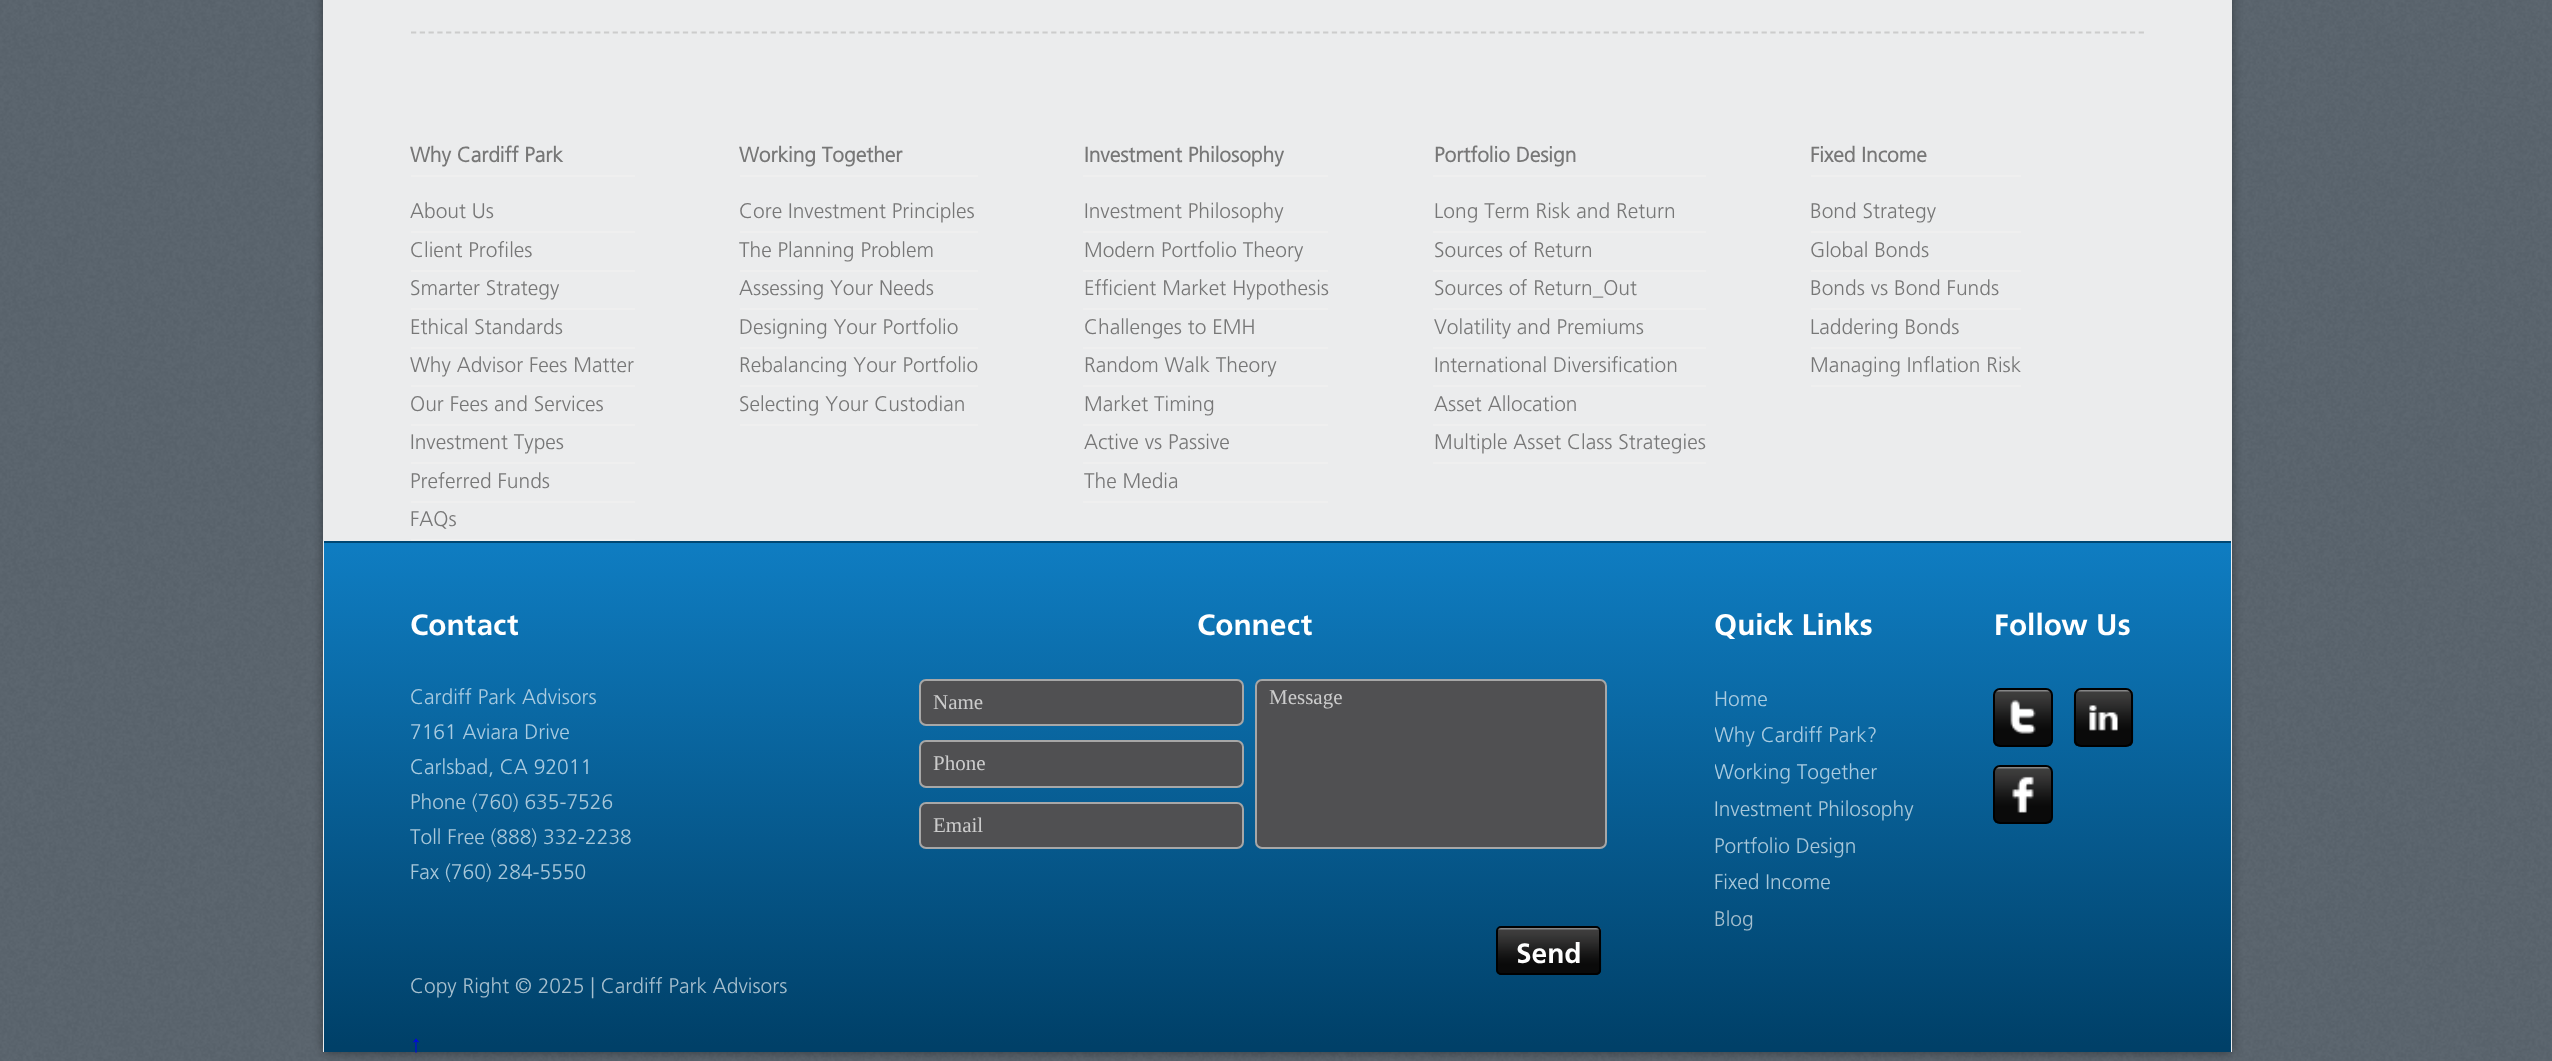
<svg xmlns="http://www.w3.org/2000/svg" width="2552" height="1061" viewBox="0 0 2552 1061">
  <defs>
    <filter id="blur1" x="-50%" y="-200%" width="200%" height="500%"><feGaussianBlur stdDeviation="6"/></filter>
    <linearGradient id="g1" gradientUnits="userSpaceOnUse" x1="1278" y1="542" x2="1278" y2="1052"><stop offset="0" stop-color="#0f7dc2"/><stop offset="0.99" stop-color="#004068"/></linearGradient>
    <clipPath id="clip1"><rect x="1715" y="679" width="268" height="257"/></clipPath>
  </defs>
  <rect width="100%" height="100%" fill="#ffffff"/>
  <image x="0" y="0" width="2552" height="1061" href="img1.png"/>
  <rect x="324" y="-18" width="1907" height="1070" fill="#000000" fill-opacity="0.45" filter="url(#blur1)"/>
  <rect x="323" y="0" width="1909" height="1052" fill="#ebeced"/>
  <path d="M411 32.5H2144" fill="none" stroke="#cccccc" stroke-width="1.8" stroke-dasharray="5.25 3.52"/>
  <rect x="411" y="175" width="224" height="2" fill="#efefef"/>
  <text x="410" y="162" font-family="'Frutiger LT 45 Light'" font-size="21" font-weight="bold" fill="#777777">Why Cardiff Park</text>
  <rect x="411" y="231" width="224" height="2" fill="#efefef"/>
  <text x="410" y="218" font-family="'Frutiger LT 45 Light'" font-size="21" font-weight="300" fill="#777777">About Us</text>
  <rect x="411" y="270" width="224" height="2" fill="#efefef"/>
  <text x="410" y="257" font-family="'Frutiger LT 45 Light'" font-size="21" font-weight="300" fill="#777777">Client Profiles</text>
  <rect x="411" y="308" width="224" height="2" fill="#efefef"/>
  <text x="410" y="295" font-family="'Frutiger LT 45 Light'" font-size="21" font-weight="300" fill="#777777">Smarter Strategy</text>
  <rect x="411" y="347" width="224" height="2" fill="#efefef"/>
  <text x="410" y="334" font-family="'Frutiger LT 45 Light'" font-size="21" font-weight="300" fill="#777777">Ethical Standards</text>
  <rect x="411" y="385" width="224" height="2" fill="#efefef"/>
  <text x="410" y="372" font-family="'Frutiger LT 45 Light'" font-size="21" font-weight="300" fill="#777777">Why Advisor Fees Matter</text>
  <rect x="411" y="424" width="224" height="2" fill="#efefef"/>
  <text x="410" y="411" font-family="'Frutiger LT 45 Light'" font-size="21" font-weight="300" fill="#777777">Our Fees and Services</text>
  <rect x="411" y="462" width="224" height="2" fill="#efefef"/>
  <text x="410" y="449" font-family="'Frutiger LT 45 Light'" font-size="21" font-weight="300" fill="#777777">Investment Types</text>
  <rect x="411" y="501" width="224" height="2" fill="#efefef"/>
  <text x="410" y="488" font-family="'Frutiger LT 45 Light'" font-size="21" font-weight="300" fill="#777777">Preferred Funds</text>
  <rect x="411" y="539" width="224" height="2" fill="#efefef"/>
  <text x="410" y="526" font-family="'Frutiger LT 45 Light'" font-size="21" font-weight="300" fill="#777777">FAQs</text>
  <rect x="740" y="175" width="238" height="2" fill="#efefef"/>
  <text x="739" y="162" font-family="'Frutiger LT 45 Light'" font-size="21" font-weight="bold" fill="#777777">Working Together</text>
  <rect x="740" y="231" width="238" height="2" fill="#efefef"/>
  <text x="739" y="218" font-family="'Frutiger LT 45 Light'" font-size="21" font-weight="300" fill="#777777">Core Investment Principles</text>
  <rect x="740" y="270" width="238" height="2" fill="#efefef"/>
  <text x="739" y="257" font-family="'Frutiger LT 45 Light'" font-size="21" font-weight="300" fill="#777777">The Planning Problem</text>
  <rect x="740" y="308" width="238" height="2" fill="#efefef"/>
  <text x="739" y="295" font-family="'Frutiger LT 45 Light'" font-size="21" font-weight="300" fill="#777777">Assessing Your Needs</text>
  <rect x="740" y="347" width="238" height="2" fill="#efefef"/>
  <text x="739" y="334" font-family="'Frutiger LT 45 Light'" font-size="21" font-weight="300" fill="#777777">Designing Your Portfolio</text>
  <rect x="740" y="385" width="238" height="2" fill="#efefef"/>
  <text x="739" y="372" font-family="'Frutiger LT 45 Light'" font-size="21" font-weight="300" fill="#777777">Rebalancing Your Portfolio</text>
  <rect x="740" y="424" width="238" height="2" fill="#efefef"/>
  <text x="739" y="411" font-family="'Frutiger LT 45 Light'" font-size="21" font-weight="300" fill="#777777">Selecting Your Custodian</text>
  <rect x="1083" y="175" width="245" height="2" fill="#efefef"/>
  <text x="1084" y="162" font-family="'Frutiger LT 45 Light'" font-size="21" font-weight="bold" fill="#777777">Investment Philosophy</text>
  <rect x="1083" y="231" width="245" height="2" fill="#efefef"/>
  <text x="1084" y="218" font-family="'Frutiger LT 45 Light'" font-size="21" font-weight="300" fill="#777777">Investment Philosophy</text>
  <rect x="1083" y="270" width="245" height="2" fill="#efefef"/>
  <text x="1084" y="257" font-family="'Frutiger LT 45 Light'" font-size="21" font-weight="300" fill="#777777">Modern Portfolio Theory</text>
  <rect x="1083" y="308" width="245" height="2" fill="#efefef"/>
  <text x="1084" y="295" font-family="'Frutiger LT 45 Light'" font-size="21" font-weight="300" fill="#777777">Efficient Market Hypothesis</text>
  <rect x="1083" y="347" width="245" height="2" fill="#efefef"/>
  <text x="1084" y="334" font-family="'Frutiger LT 45 Light'" font-size="21" font-weight="300" fill="#777777">Challenges to EMH</text>
  <rect x="1083" y="385" width="245" height="2" fill="#efefef"/>
  <text x="1084" y="372" font-family="'Frutiger LT 45 Light'" font-size="21" font-weight="300" fill="#777777">Random Walk Theory</text>
  <rect x="1083" y="424" width="245" height="2" fill="#efefef"/>
  <text x="1084" y="411" font-family="'Frutiger LT 45 Light'" font-size="21" font-weight="300" fill="#777777">Market Timing</text>
  <rect x="1083" y="462" width="245" height="2" fill="#efefef"/>
  <text x="1084" y="449" font-family="'Frutiger LT 45 Light'" font-size="21" font-weight="300" fill="#777777">Active vs Passive</text>
  <rect x="1083" y="501" width="245" height="2" fill="#efefef"/>
  <text x="1084" y="488" font-family="'Frutiger LT 45 Light'" font-size="21" font-weight="300" fill="#777777">The Media</text>
  <rect x="1433" y="175" width="273" height="2" fill="#efefef"/>
  <text x="1434" y="162" font-family="'Frutiger LT 45 Light'" font-size="21" font-weight="bold" fill="#777777">Portfolio Design</text>
  <rect x="1433" y="231" width="273" height="2" fill="#efefef"/>
  <text x="1434" y="218" font-family="'Frutiger LT 45 Light'" font-size="21" font-weight="300" fill="#777777">Long Term Risk and Return</text>
  <rect x="1433" y="270" width="273" height="2" fill="#efefef"/>
  <text x="1434" y="257" font-family="'Frutiger LT 45 Light'" font-size="21" font-weight="300" fill="#777777">Sources of Return</text>
  <rect x="1433" y="308" width="273" height="2" fill="#efefef"/>
  <text x="1434" y="295" font-family="'Frutiger LT 45 Light'" font-size="21" font-weight="300" fill="#777777">Sources of Return_Out</text>
  <rect x="1433" y="347" width="273" height="2" fill="#efefef"/>
  <text x="1434" y="334" font-family="'Frutiger LT 45 Light'" font-size="21" font-weight="300" fill="#777777">Volatility and Premiums</text>
  <rect x="1433" y="385" width="273" height="2" fill="#efefef"/>
  <text x="1434" y="372" font-family="'Frutiger LT 45 Light'" font-size="21" font-weight="300" fill="#777777">International Diversification</text>
  <rect x="1433" y="424" width="273" height="2" fill="#efefef"/>
  <text x="1434" y="411" font-family="'Frutiger LT 45 Light'" font-size="21" font-weight="300" fill="#777777">Asset Allocation</text>
  <rect x="1433" y="462" width="273" height="2" fill="#efefef"/>
  <text x="1434" y="449" font-family="'Frutiger LT 45 Light'" font-size="21" font-weight="300" fill="#777777">Multiple Asset Class Strategies</text>
  <rect x="1811" y="175" width="210" height="2" fill="#efefef"/>
  <text x="1810" y="162" font-family="'Frutiger LT 45 Light'" font-size="21" font-weight="bold" fill="#777777">Fixed Income</text>
  <rect x="1811" y="231" width="210" height="2" fill="#efefef"/>
  <text x="1810" y="218" font-family="'Frutiger LT 45 Light'" font-size="21" font-weight="300" fill="#777777">Bond Strategy</text>
  <rect x="1811" y="270" width="210" height="2" fill="#efefef"/>
  <text x="1810" y="257" font-family="'Frutiger LT 45 Light'" font-size="21" font-weight="300" fill="#777777">Global Bonds</text>
  <rect x="1811" y="308" width="210" height="2" fill="#efefef"/>
  <text x="1810" y="295" font-family="'Frutiger LT 45 Light'" font-size="21" font-weight="300" fill="#777777">Bonds vs Bond Funds</text>
  <rect x="1811" y="347" width="210" height="2" fill="#efefef"/>
  <text x="1810" y="334" font-family="'Frutiger LT 45 Light'" font-size="21" font-weight="300" fill="#777777">Laddering Bonds</text>
  <rect x="1811" y="385" width="210" height="2" fill="#efefef"/>
  <text x="1810" y="372" font-family="'Frutiger LT 45 Light'" font-size="21" font-weight="300" fill="#777777">Managing Inflation Risk</text>
  <rect x="324" y="543" width="1907" height="509" fill="url(#g1)"/>
  <rect x="324" y="541" width="1907" height="2" fill="#004773"/>
  <text x="410" y="635" font-family="Frutiger" font-size="29.75" font-weight="bold" fill="#ffffff">Contact</text>
  <text x="410" y="704" font-family="'Frutiger LT 45 Light'" font-size="21" font-weight="300" fill="#a9cbe0">Cardiff Park Advisors</text>
  <text x="410" y="739" font-family="'Frutiger LT 45 Light'" font-size="21" font-weight="300" fill="#a9cbe0">7161 Aviara Drive</text>
  <text x="410" y="774" font-family="'Frutiger LT 45 Light'" font-size="21" font-weight="300" fill="#a9cbe0">Carlsbad, CA 92011</text>
  <text x="410" y="809" font-family="'Frutiger LT 45 Light'" font-size="21" font-weight="300" fill="#a8c7d9">Phone (760) 635-7526</text>
  <text x="410" y="844" font-family="'Frutiger LT 45 Light'" font-size="21" font-weight="300" fill="#a8c7d9">Toll Free (888) 332-2238</text>
  <text x="410" y="879" font-family="'Frutiger LT 45 Light'" font-size="21" font-weight="300" fill="#a8c7d9">Fax (760) 284-5550</text>
  <text x="410" y="993" font-family="'Frutiger LT 45 Light'" font-size="21" font-weight="300" fill="#a6bfce">Copy Right © 2025 | Cardiff Park Advisors</text>
  <text x="1197" y="635" font-family="Frutiger" font-size="29.75" font-weight="bold" fill="#ffffff">Connect</text>
  <rect x="920" y="680" width="323" height="45" rx="6" fill="#505052" stroke="#a7a7a7" stroke-width="2"/>
  <text x="933" y="709" font-family="Liberation Serif" font-size="21" fill="#cccccc">Name</text>
  <rect x="920" y="741" width="323" height="46" rx="6" fill="#505052" stroke="#a7a7a7" stroke-width="2"/>
  <text x="933" y="770" font-family="Liberation Serif" font-size="21" fill="#cccccc">Phone</text>
  <rect x="920" y="803" width="323" height="45" rx="6" fill="#505052" stroke="#a7a7a7" stroke-width="2"/>
  <text x="933" y="832" font-family="Liberation Serif" font-size="21" fill="#cccccc">Email</text>
  <rect x="1256" y="680" width="350" height="168" rx="6" fill="#505052" stroke="#a7a7a7" stroke-width="2"/>
  <text x="1269" y="704" font-family="Liberation Serif" font-size="21" fill="#cccccc">Message</text>
  <image x="1496" y="927" width="106" height="48" href="img2.png"/>
  <rect x="1497" y="927" width="103" height="47" rx="4" fill="none" stroke="#000000" stroke-width="2"/>
  <text x="1516" y="963" font-family="Frutiger" font-size="28" font-weight="bold" fill="#ffffff">Send</text>
  <text x="1714" y="635" font-family="Frutiger" font-size="29.75" font-weight="bold" fill="#ffffff">Quick Links</text>
  <text x="1714" y="706" font-family="'Frutiger LT 45 Light'" font-size="21" font-weight="300" fill="#a9cbe0">Home</text>
  <g clip-path="url(#clip1)">
    <text x="1714" y="742" font-family="'Frutiger LT 45 Light'" font-size="21" font-weight="300" fill="#a9cbe0">Why Cardiff Park?</text>
    <text x="1714" y="779" font-family="'Frutiger LT 45 Light'" font-size="21" font-weight="300" fill="#a9cbe0">Working Together</text>
  </g>
  <text x="1714" y="816" font-family="'Frutiger LT 45 Light'" font-size="21" font-weight="300" fill="#a8c7d9">Investment Philosophy</text>
  <text x="1714" y="853" font-family="'Frutiger LT 45 Light'" font-size="21" font-weight="300" fill="#a8c7d9">Portfolio Design</text>
  <text x="1714" y="889" font-family="'Frutiger LT 45 Light'" font-size="21" font-weight="300" fill="#a8c7d9">Fixed Income</text>
  <text x="1714" y="926" font-family="'Frutiger LT 45 Light'" font-size="21" font-weight="300" fill="#a6bfce">Blog</text>
  <text x="1994" y="635" font-family="Frutiger" font-size="29.75" font-weight="bold" fill="#ffffff">Follow Us</text>
  <image x="1993" y="689" width="60" height="57" href="img3.png"/>
  <rect x="1994" y="689" width="58" height="57" rx="6" fill="none" stroke="#000000" stroke-width="2"/>
  <image x="2010" y="699" width="26" height="35" href="img4.png"/>
  <image x="2073" y="689" width="61" height="57" href="img5.png"/>
  <rect x="2075" y="689" width="57" height="57" rx="6" fill="none" stroke="#000000" stroke-width="2"/>
  <image x="2089" y="705" width="29" height="26" href="img6.png"/>
  <image x="1993" y="766" width="60" height="57" href="img7.png"/>
  <rect x="1994" y="766" width="58" height="57" rx="6" fill="none" stroke="#000000" stroke-width="2"/>
  <image x="2012" y="776" width="22" height="37" href="img8.png"/>
  <text x="410" y="1052" font-family="Liberation Serif" font-size="24" fill="#0000ee">↑</text>
</svg>
